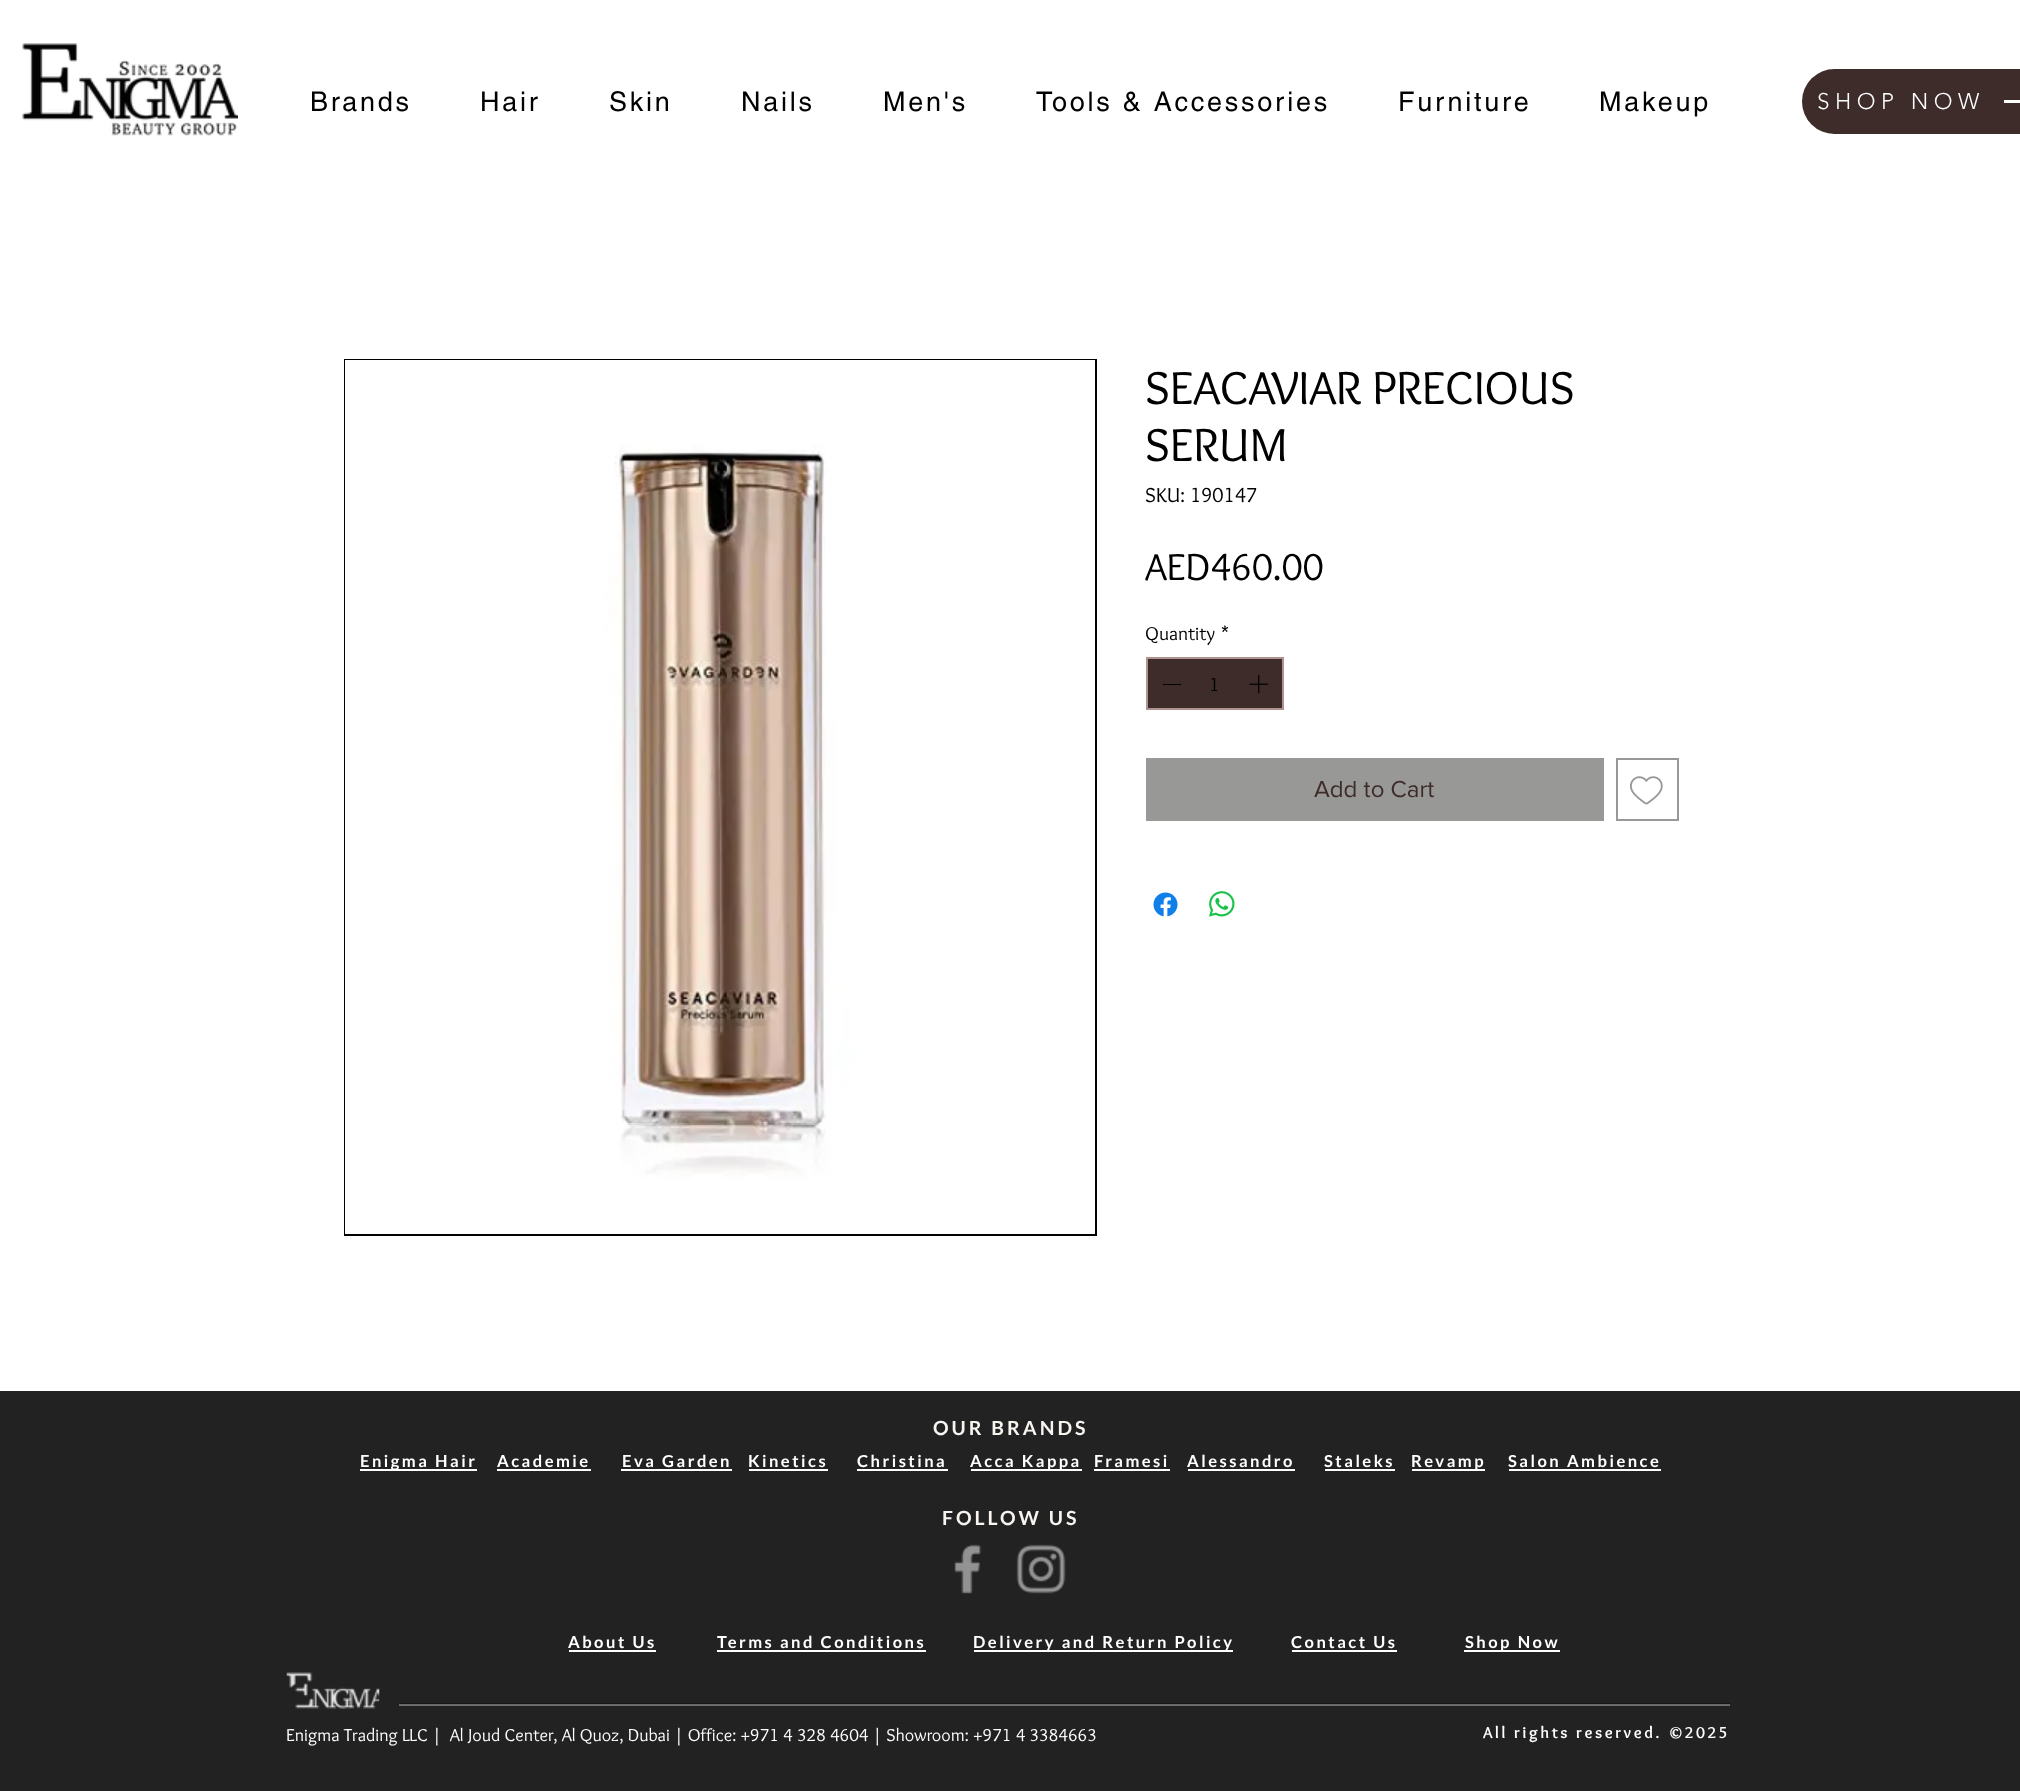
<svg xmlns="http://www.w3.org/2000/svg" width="2020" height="1791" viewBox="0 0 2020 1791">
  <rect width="100%" height="100%" fill="#ffffff"/>
  <image x="22" y="43" width="217" height="93" href="img1.png"/>
  <text x="310" y="111" font-family="helvetica" font-size="27" letter-spacing="2.75" fill="#000000">Brands</text>
  <text x="480" y="111" font-family="helvetica" font-size="27" letter-spacing="2.75" fill="#000000">Hair</text>
  <text x="609" y="111" font-family="helvetica" font-size="27" letter-spacing="2.75" fill="#000000">Skin</text>
  <text x="741" y="111" font-family="helvetica" font-size="27" letter-spacing="2.75" fill="#000000">Nails</text>
  <text x="883" y="111" font-family="helvetica" font-size="27" letter-spacing="2.75" fill="#000000">Men's</text>
  <text x="1036" y="111" font-family="helvetica" font-size="27" letter-spacing="2.75" fill="#000000">Tools &amp; Accessories</text>
  <text x="1398" y="111" font-family="helvetica" font-size="27" letter-spacing="2.75" fill="#000000">Furniture</text>
  <text x="1599" y="111" font-family="helvetica" font-size="27" letter-spacing="2.75" fill="#000000">Makeup</text>
  <rect x="1802" y="69" width="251" height="65" rx="32.5" fill="#3d2c2a"/>
  <text x="1817" y="109" font-family="'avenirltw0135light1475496'" font-size="22.5" font-weight="300" letter-spacing="5.5" fill="#ffffff">SHOP NOW</text>
  <path d="M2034 88L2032 90L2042 100H2004V103H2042L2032 112L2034 115L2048 101Z" fill="#ffffff" fill-rule="evenodd"/>
  <rect x="345" y="360" width="751" height="875" fill="none" stroke="#000000" stroke-width="2"/>
  <image x="345" y="360" width="750" height="874" href="img2.png"/>
  <text x="1145" y="404" font-family="Overlock" font-size="48" fill="#000000">SEACAVIAR PRECIOUS</text>
  <text x="1145" y="461" font-family="Overlock" font-size="48" fill="#000000">SERUM</text>
  <text x="1145" y="502" font-family="Overlock" font-size="21" fill="#000000">SKU: 190147</text>
  <text x="1145" y="580" font-family="Overlock" font-size="39" fill="#000000">AED460.00</text>
  <text x="1145" y="640" font-family="Overlock" font-size="19.5" fill="#000000">Quantity</text>
  <text x="1221" y="640" font-family="Overlock" font-size="19.5" fill="#000000">*</text>
  <rect x="1147" y="658" width="136" height="51" fill="#3d2c2a" stroke="#af9390" stroke-width="2"/>
  <rect x="1163" y="684" width="18" height="1" fill="#000000"/>
  <text x="1209" y="691" font-family="Overlock" font-size="19.5" fill="#000000">1</text>
  <image x="1249" y="675" width="19" height="19" href="img3.png"/>
  <rect x="1146" y="758" width="458" height="63" fill="#989897"/>
  <text x="1314" y="797" font-family="'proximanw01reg'" font-size="24" fill="#3d2c2a">Add to Cart</text>
  <rect x="1617" y="759" width="61" height="61" fill="none" stroke="#989897" stroke-width="2"/>
  <image x="1630" y="776" width="33" height="29" href="img4.png"/>
  <image x="1153" y="892" width="25" height="25" href="img5.png"/>
  <image x="1209" y="891" width="26" height="26" href="img6.png"/>
  <rect x="0" y="1391" width="2020" height="400" fill="#222222"/>
  <rect x="399" y="1705" width="1331" height="1" fill="#6f6f6f"/>
  <text x="933" y="1435" font-family="Lato" font-size="19.5" font-weight="bold" letter-spacing="3" fill="#f8f4f0">OUR BRANDS</text>
  <rect x="360" y="1469" width="117" height="2" fill="#ffffff"/>
  <text x="360" y="1467" font-family="Lato" font-size="16.5" font-weight="bold" letter-spacing="2.5" fill="#ffffff">Enigma Hair</text>
  <text x="497" y="1467" font-family="Lato" font-size="16.5" font-weight="bold" letter-spacing="2.5" fill="#ffffff">Academie</text>
  <rect x="497" y="1469" width="94" height="2" fill="#ffffff"/>
  <text x="622" y="1467" font-family="Lato" font-size="16.5" font-weight="bold" letter-spacing="2.5" fill="#ffffff">Eva Garden</text>
  <rect x="621" y="1469" width="111" height="2" fill="#ffffff"/>
  <text x="748" y="1467" font-family="Lato" font-size="16.5" font-weight="bold" letter-spacing="2.5" fill="#ffffff">Kinetics</text>
  <rect x="749" y="1469" width="79" height="2" fill="#ffffff"/>
  <text x="857" y="1467" font-family="Lato" font-size="16.5" font-weight="bold" letter-spacing="2.5" fill="#ffffff">Christina</text>
  <rect x="857" y="1469" width="91" height="2" fill="#ffffff"/>
  <rect x="971" y="1469" width="111" height="2" fill="#ffffff"/>
  <text x="970" y="1467" font-family="Lato" font-size="16.5" font-weight="bold" letter-spacing="2.5" fill="#ffffff">Acca Kappa</text>
  <text x="1094" y="1467" font-family="Lato" font-size="16.5" font-weight="bold" letter-spacing="2.5" fill="#ffffff">Framesi</text>
  <rect x="1094" y="1469" width="76" height="2" fill="#ffffff"/>
  <text x="1187" y="1467" font-family="Lato" font-size="16.5" font-weight="bold" letter-spacing="2.5" fill="#ffffff">Alessandro</text>
  <rect x="1188" y="1469" width="107" height="2" fill="#ffffff"/>
  <text x="1324" y="1467" font-family="Lato" font-size="16.5" font-weight="bold" letter-spacing="2.5" fill="#ffffff">Staleks</text>
  <rect x="1325" y="1469" width="70" height="2" fill="#ffffff"/>
  <rect x="1412" y="1469" width="73" height="2" fill="#ffffff"/>
  <text x="1411" y="1467" font-family="Lato" font-size="16.5" font-weight="bold" letter-spacing="2.5" fill="#ffffff">Revamp</text>
  <text x="1508" y="1467" font-family="Lato" font-size="16.5" font-weight="bold" letter-spacing="2.5" fill="#ffffff">Salon Ambience</text>
  <rect x="1509" y="1469" width="152" height="2" fill="#ffffff"/>
  <text x="942" y="1525" font-family="Lato" font-size="19.5" font-weight="bold" letter-spacing="3" fill="#f8f4f0">FOLLOW US</text>
  <image x="954" y="1544" width="28" height="50" href="img7.png"/>
  <image x="1016" y="1544" width="50" height="50" href="img8.png"/>
  <text x="568" y="1648" font-family="Lato" font-size="16.5" font-weight="bold" letter-spacing="2.5" fill="#ffffff">About Us</text>
  <rect x="569" y="1650" width="87" height="2" fill="#ffffff"/>
  <text x="717" y="1648" font-family="Lato" font-size="16.5" font-weight="bold" letter-spacing="2.5" fill="#ffffff">Terms and Conditions</text>
  <rect x="717" y="1650" width="209" height="2" fill="#ffffff"/>
  <rect x="974" y="1650" width="259" height="2" fill="#ffffff"/>
  <text x="973" y="1648" font-family="Lato" font-size="16.5" font-weight="bold" letter-spacing="2.5" fill="#ffffff">Delivery and Return Policy</text>
  <text x="1291" y="1648" font-family="Lato" font-size="16.5" font-weight="bold" letter-spacing="2.5" fill="#ffffff">Contact Us</text>
  <rect x="1292" y="1650" width="105" height="2" fill="#ffffff"/>
  <rect x="1464" y="1650" width="96" height="2" fill="#ffffff"/>
  <text x="1465" y="1648" font-family="Lato" font-size="16.5" font-weight="bold" letter-spacing="2.5" fill="#ffffff">Shop Now</text>
  <image x="286" y="1672" width="94" height="37" href="img9.png"/>
  <rect x="399" y="1703" width="1331" height="1" fill="#161616"/>
  <rect x="399" y="1704" width="1331" height="1" fill="#686868"/>
  <text x="286" y="1741" font-family="Overlock" font-size="18" fill="#ffffff" xml:space="preserve">Enigma Trading LLC |  Al Joud Center, Al Quoz, Dubai | Office: +971 4 328 4604 | Showroom: +971 4 3384663</text>
  <text x="1483" y="1738" font-family="Overlock" font-size="16.5" font-weight="bold" letter-spacing="2.5" fill="#ffffff">All rights reserved. ©2025</text>
</svg>
